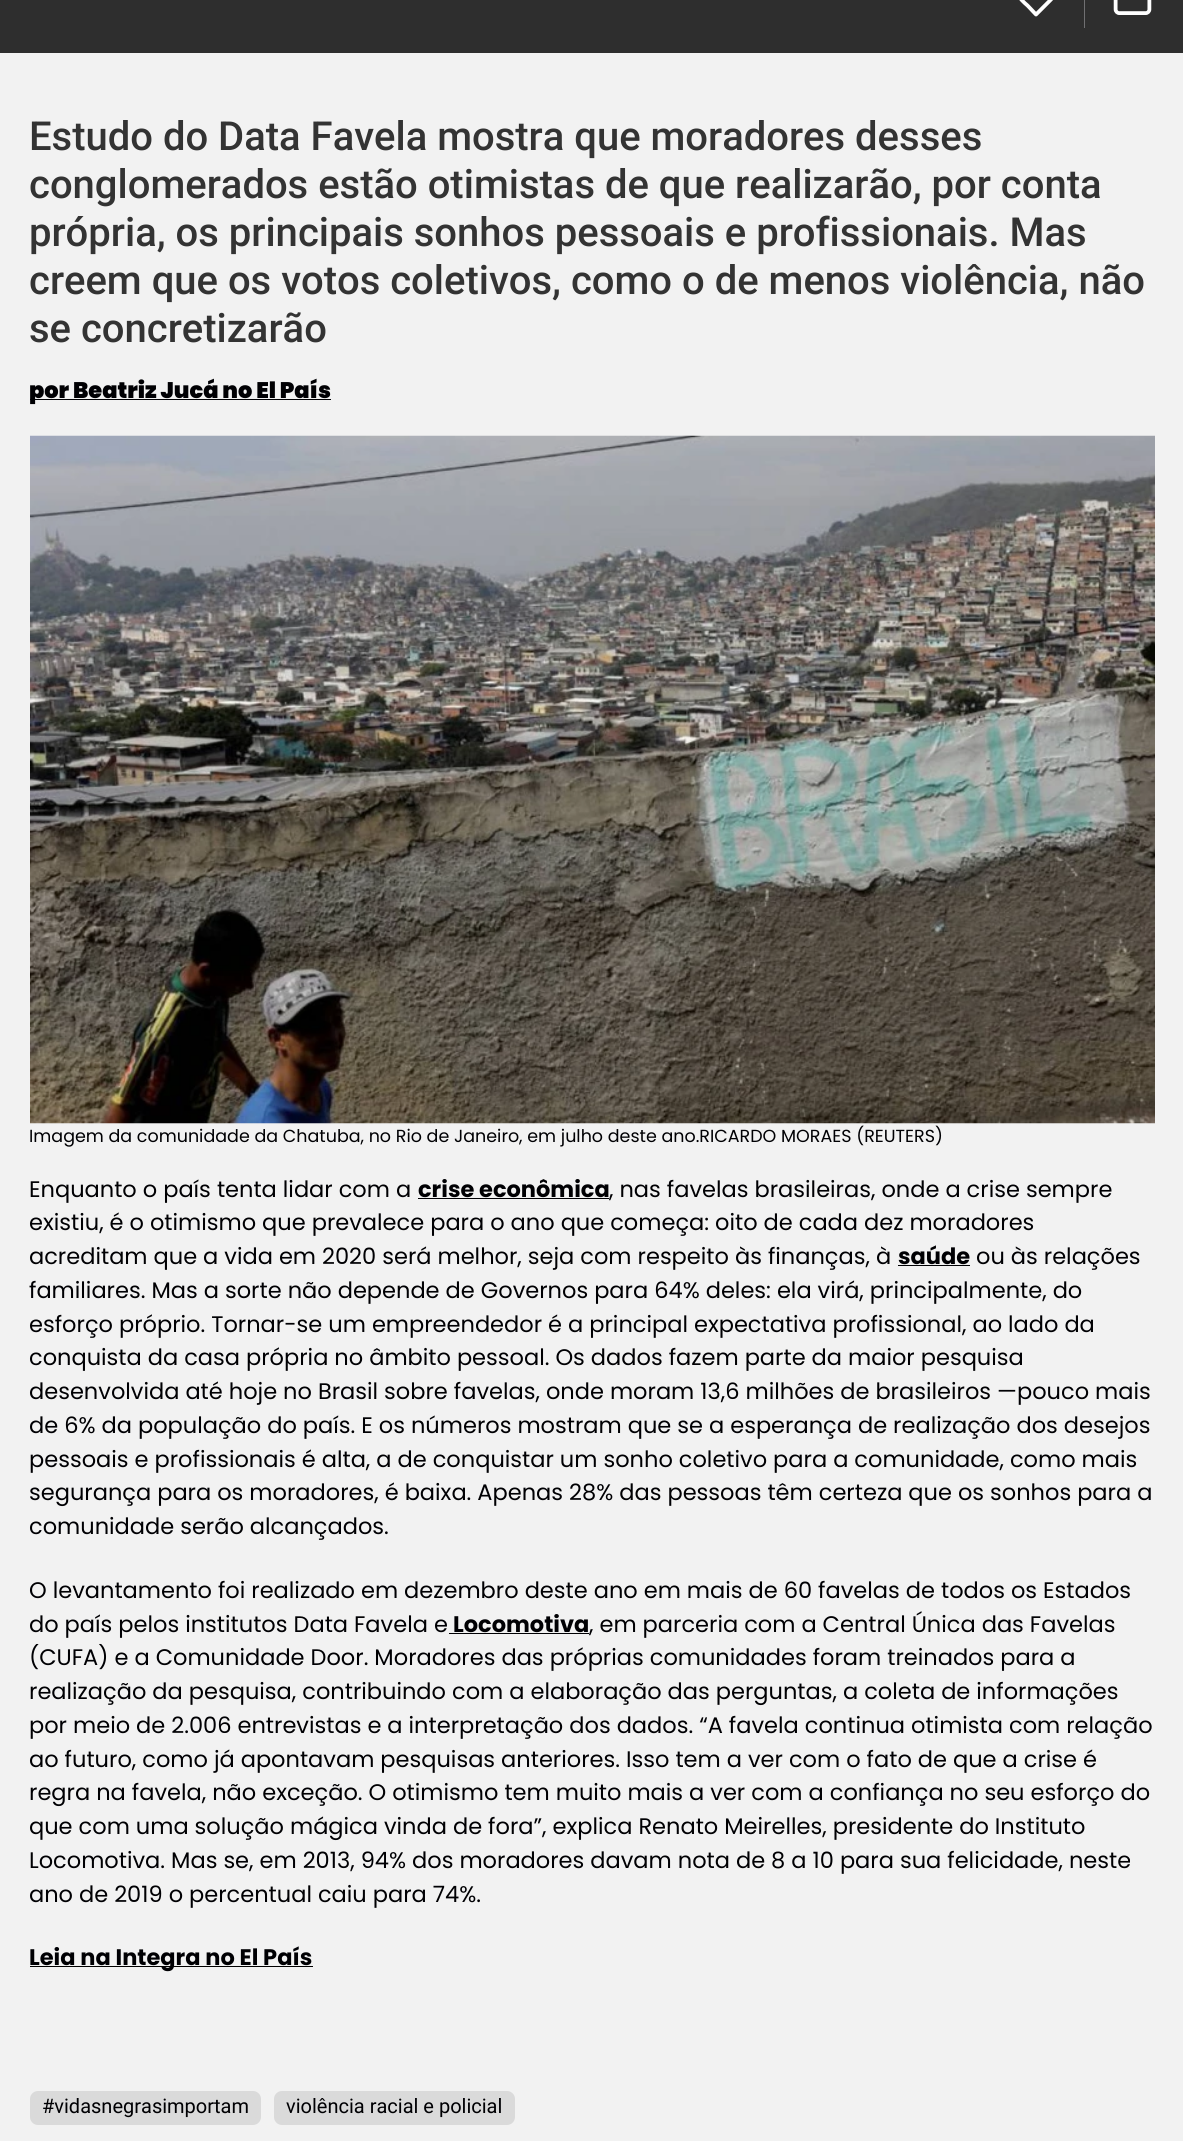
#include <cairo.h>
#include <math.h>
#include <stddef.h>

typedef struct { double x, y; const char *s; } line_t;

static void ink(cairo_t *ctx, unsigned color) {
    cairo_set_source_rgb(ctx, (color >> 16) / 255.0, (color >> 8 & 255) / 255.0, (color & 255) / 255.0);
}

static void round_path(cairo_t *ctx, double x, double y, double w, double h, double r) {
    cairo_new_sub_path(ctx);
    cairo_arc(ctx, x + w - r, y + h - r, r, 0, M_PI / 2);
    cairo_arc(ctx, x + r, y + h - r, r, M_PI / 2, M_PI);
    cairo_arc(ctx, x + r, y + r, r, M_PI, 1.5 * M_PI);
    cairo_arc(ctx, x + w - r, y + r, r, 1.5 * M_PI, 2 * M_PI);
    cairo_close_path(ctx);
}

static void paste(cairo_t *ctx, const char *path, double x, double y, double w, double h) {
    cairo_surface_t *image = cairo_image_surface_create_from_png(path);
    cairo_save(ctx);
    cairo_set_source_surface(ctx, image, x, y);
    cairo_rectangle(ctx, x, y, w, h);
    cairo_fill(ctx);
    cairo_restore(ctx);
    cairo_surface_destroy(image);
}

int main(void) {
    cairo_surface_t *surface = cairo_image_surface_create(CAIRO_FORMAT_RGB24, 1183, 2141);
    cairo_t *ctx = cairo_create(surface);
    cairo_font_options_t *options = cairo_font_options_create();
    cairo_font_options_set_hint_metrics(options, CAIRO_HINT_METRICS_OFF);
    cairo_font_options_set_hint_style(options, CAIRO_HINT_STYLE_NONE);
    cairo_set_font_options(ctx, options);
    cairo_set_miter_limit(ctx, 4);
    ink(ctx, 0xF2F2F2);
    cairo_paint(ctx);
    ink(ctx, 0x2E2E2E);
    cairo_rectangle(ctx, 0, 0, 1183, 53);
    cairo_fill(ctx);
    cairo_new_path(ctx);
    cairo_move_to(ctx, 1049.5, 1);
    cairo_curve_to(ctx, 1051.5, -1, 1053.5, -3, 1054.5, -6);
    cairo_curve_to(ctx, 1058, -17, 1044.5, -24, 1036, -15.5);
    cairo_curve_to(ctx, 1028, -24, 1014.5, -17, 1018, -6);
    cairo_curve_to(ctx, 1019.5, -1.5, 1024, 2.5, 1027.5, 5.5);
    cairo_line_to(ctx, 1036, 14.5);
    cairo_close_path(ctx);
    ink(ctx, 0xFFFFFF);
    cairo_set_line_width(ctx, 3.8);
    cairo_set_line_cap(ctx, CAIRO_LINE_CAP_ROUND);
    cairo_set_line_join(ctx, CAIRO_LINE_JOIN_ROUND);
    cairo_stroke(ctx);
    ink(ctx, 0x707072);
    cairo_rectangle(ctx, 1084, 0, 1, 28);
    cairo_fill(ctx);
    paste(ctx, "media/1.png", 1113, 0, 39, 15);
    cairo_select_font_face(ctx, "Roboto Medium", CAIRO_FONT_SLANT_NORMAL, CAIRO_FONT_WEIGHT_NORMAL);
    cairo_set_font_size(ctx, 40);
    ink(ctx, 0x333333);
    {
        static const line_t items[] = {
            {29, 150, "Estudo do Data Favela mostra que moradores desses"},
            {29, 198, "conglomerados estão otimistas de que realizarão, por conta"},
            {29, 246, "própria, os principais sonhos pessoais e profissionais. Mas"},
            {29, 294, "creem que os votos coletivos, como o de menos violência, não"},
            {29, 342, "se concretizarão"},
        };
        for (size_t i = 0; i < sizeof items / sizeof *items; i++) {
            cairo_move_to(ctx, items[i].x, items[i].y);
            cairo_show_text(ctx, items[i].s);
        }
    }
    ink(ctx, 0x000003);
    cairo_rectangle(ctx, 30, 399, 301, 1);
    cairo_fill(ctx);
    cairo_select_font_face(ctx, "Poppins Black", CAIRO_FONT_SLANT_NORMAL, CAIRO_FONT_WEIGHT_NORMAL);
    cairo_set_font_size(ctx, 22.5);
    cairo_move_to(ctx, 29, 398);
    cairo_show_text(ctx, "por Beatriz Jucá no El País");
    paste(ctx, "media/2.png", 30, 435, 1125, 689);
    cairo_select_font_face(ctx, "Poppins", CAIRO_FONT_SLANT_NORMAL, CAIRO_FONT_WEIGHT_NORMAL);
    cairo_set_font_size(ctx, 17.5);
    cairo_move_to(ctx, 29, 1142);
    cairo_show_text(ctx, "Imagem da comunidade da Chatuba, no Rio de Janeiro, em julho deste ano.RICARDO MORAES (REUTERS)");
    cairo_set_font_size(ctx, 22.5);
    cairo_move_to(ctx, 29, 1197);
    cairo_show_text(ctx, "Enquanto o país tenta lidar com a");
    cairo_select_font_face(ctx, "Poppins", CAIRO_FONT_SLANT_NORMAL, CAIRO_FONT_WEIGHT_BOLD);
    cairo_move_to(ctx, 418, 1197);
    cairo_show_text(ctx, "crise econômica");
    cairo_rectangle(ctx, 418, 1198, 191, 1);
    cairo_fill(ctx);
    cairo_select_font_face(ctx, "Poppins", CAIRO_FONT_SLANT_NORMAL, CAIRO_FONT_WEIGHT_NORMAL);
    {
        static const line_t items[] = {
            {609, 1197, ", nas favelas brasileiras, onde a crise sempre"},
            {29, 1230, "existiu, é o otimismo que prevalece para o ano que começa: oito de cada dez moradores"},
            {29, 1264, "acreditam que a vida em 2020 será melhor, seja com respeito às finanças, à"},
        };
        for (size_t i = 0; i < sizeof items / sizeof *items; i++) {
            cairo_move_to(ctx, items[i].x, items[i].y);
            cairo_show_text(ctx, items[i].s);
        }
    }
    cairo_select_font_face(ctx, "Poppins", CAIRO_FONT_SLANT_NORMAL, CAIRO_FONT_WEIGHT_BOLD);
    cairo_move_to(ctx, 898, 1264);
    cairo_show_text(ctx, "saúde");
    cairo_rectangle(ctx, 898, 1265, 72, 1);
    cairo_fill(ctx);
    cairo_select_font_face(ctx, "Poppins", CAIRO_FONT_SLANT_NORMAL, CAIRO_FONT_WEIGHT_NORMAL);
    {
        static const line_t items[] = {
            {976, 1264, "ou às relações"},
            {29, 1298, "familiares. Mas a sorte não depende de Governos para 64% deles: ela virá, principalmente, do"},
            {29, 1332, "esforço próprio. Tornar-se um empreendedor é a principal expectativa profissional, ao lado da"},
            {29, 1365, "conquista da casa própria no âmbito pessoal. Os dados fazem parte da maior pesquisa"},
            {29, 1399, "desenvolvida até hoje no Brasil sobre favelas, onde moram 13,6 milhões de brasileiros —pouco mais"},
            {29, 1433, "de 6% da população do país. E os números mostram que se a esperança de realização dos desejos"},
            {29, 1467, "pessoais e profissionais é alta, a de conquistar um sonho coletivo para a comunidade, como mais"},
            {29, 1500, "segurança para os moradores, é baixa. Apenas 28% das pessoas têm certeza que os sonhos para a"},
            {29, 1534, "comunidade serão alcançados."},
            {29, 1598, "O levantamento foi realizado em dezembro deste ano em mais de 60 favelas de todos os Estados"},
            {29, 1632, "do país pelos institutos Data Favela e"},
        };
        for (size_t i = 0; i < sizeof items / sizeof *items; i++) {
            cairo_move_to(ctx, items[i].x, items[i].y);
            cairo_show_text(ctx, items[i].s);
        }
    }
    cairo_select_font_face(ctx, "Poppins", CAIRO_FONT_SLANT_NORMAL, CAIRO_FONT_WEIGHT_BOLD);
    cairo_move_to(ctx, 453, 1632);
    cairo_show_text(ctx, "Locomotiva");
    cairo_rectangle(ctx, 449, 1633, 140, 1);
    cairo_fill(ctx);
    cairo_select_font_face(ctx, "Poppins", CAIRO_FONT_SLANT_NORMAL, CAIRO_FONT_WEIGHT_NORMAL);
    {
        static const line_t items[] = {
            {589, 1632, ", em parceria com a Central Única das Favelas"},
            {29, 1665, "(CUFA) e a Comunidade Door. Moradores das próprias comunidades foram treinados para a"},
            {29, 1699, "realização da pesquisa, contribuindo com a elaboração das perguntas, a coleta de informações"},
            {29, 1733, "por meio de 2.006 entrevistas e a interpretação dos dados. “A favela continua otimista com relação"},
            {29, 1767, "ao futuro, como já apontavam pesquisas anteriores. Isso tem a ver com o fato de que a crise é"},
            {29, 1800, "regra na favela, não exceção. O otimismo tem muito mais a ver com a confiança no seu esforço do"},
            {29, 1834, "que com uma solução mágica vinda de fora”, explica Renato Meirelles, presidente do Instituto"},
            {29, 1868, "Locomotiva. Mas se, em 2013, 94% dos moradores davam nota de 8 a 10 para sua felicidade, neste"},
            {29, 1902, "ano de 2019 o percentual caiu para 74%."},
        };
        for (size_t i = 0; i < sizeof items / sizeof *items; i++) {
            cairo_move_to(ctx, items[i].x, items[i].y);
            cairo_show_text(ctx, items[i].s);
        }
    }
    ink(ctx, 0x000000);
    cairo_rectangle(ctx, 30, 1966, 283, 1);
    cairo_fill(ctx);
    cairo_select_font_face(ctx, "Poppins", CAIRO_FONT_SLANT_NORMAL, CAIRO_FONT_WEIGHT_BOLD);
    ink(ctx, 0x000003);
    cairo_move_to(ctx, 29, 1965);
    cairo_show_text(ctx, "Leia na Integra no El País");
    ink(ctx, 0xDADADA);
    round_path(ctx, 30, 2091, 231, 34, 8);
    cairo_fill(ctx);
    cairo_select_font_face(ctx, "Roboto", CAIRO_FONT_SLANT_NORMAL, CAIRO_FONT_WEIGHT_NORMAL);
    cairo_set_font_size(ctx, 20);
    ink(ctx, 0x000003);
    cairo_move_to(ctx, 42, 2113);
    cairo_show_text(ctx, "#vidasnegrasimportam");
    ink(ctx, 0xDADADA);
    round_path(ctx, 274, 2091, 241, 34, 8);
    cairo_fill(ctx);
    ink(ctx, 0x000003);
    cairo_move_to(ctx, 286, 2113);
    cairo_show_text(ctx, "violência racial e policial");
    cairo_surface_write_to_png(surface, "image.png");
    cairo_font_options_destroy(options);
    cairo_destroy(ctx);
    cairo_surface_destroy(surface);
    return 0;
}
